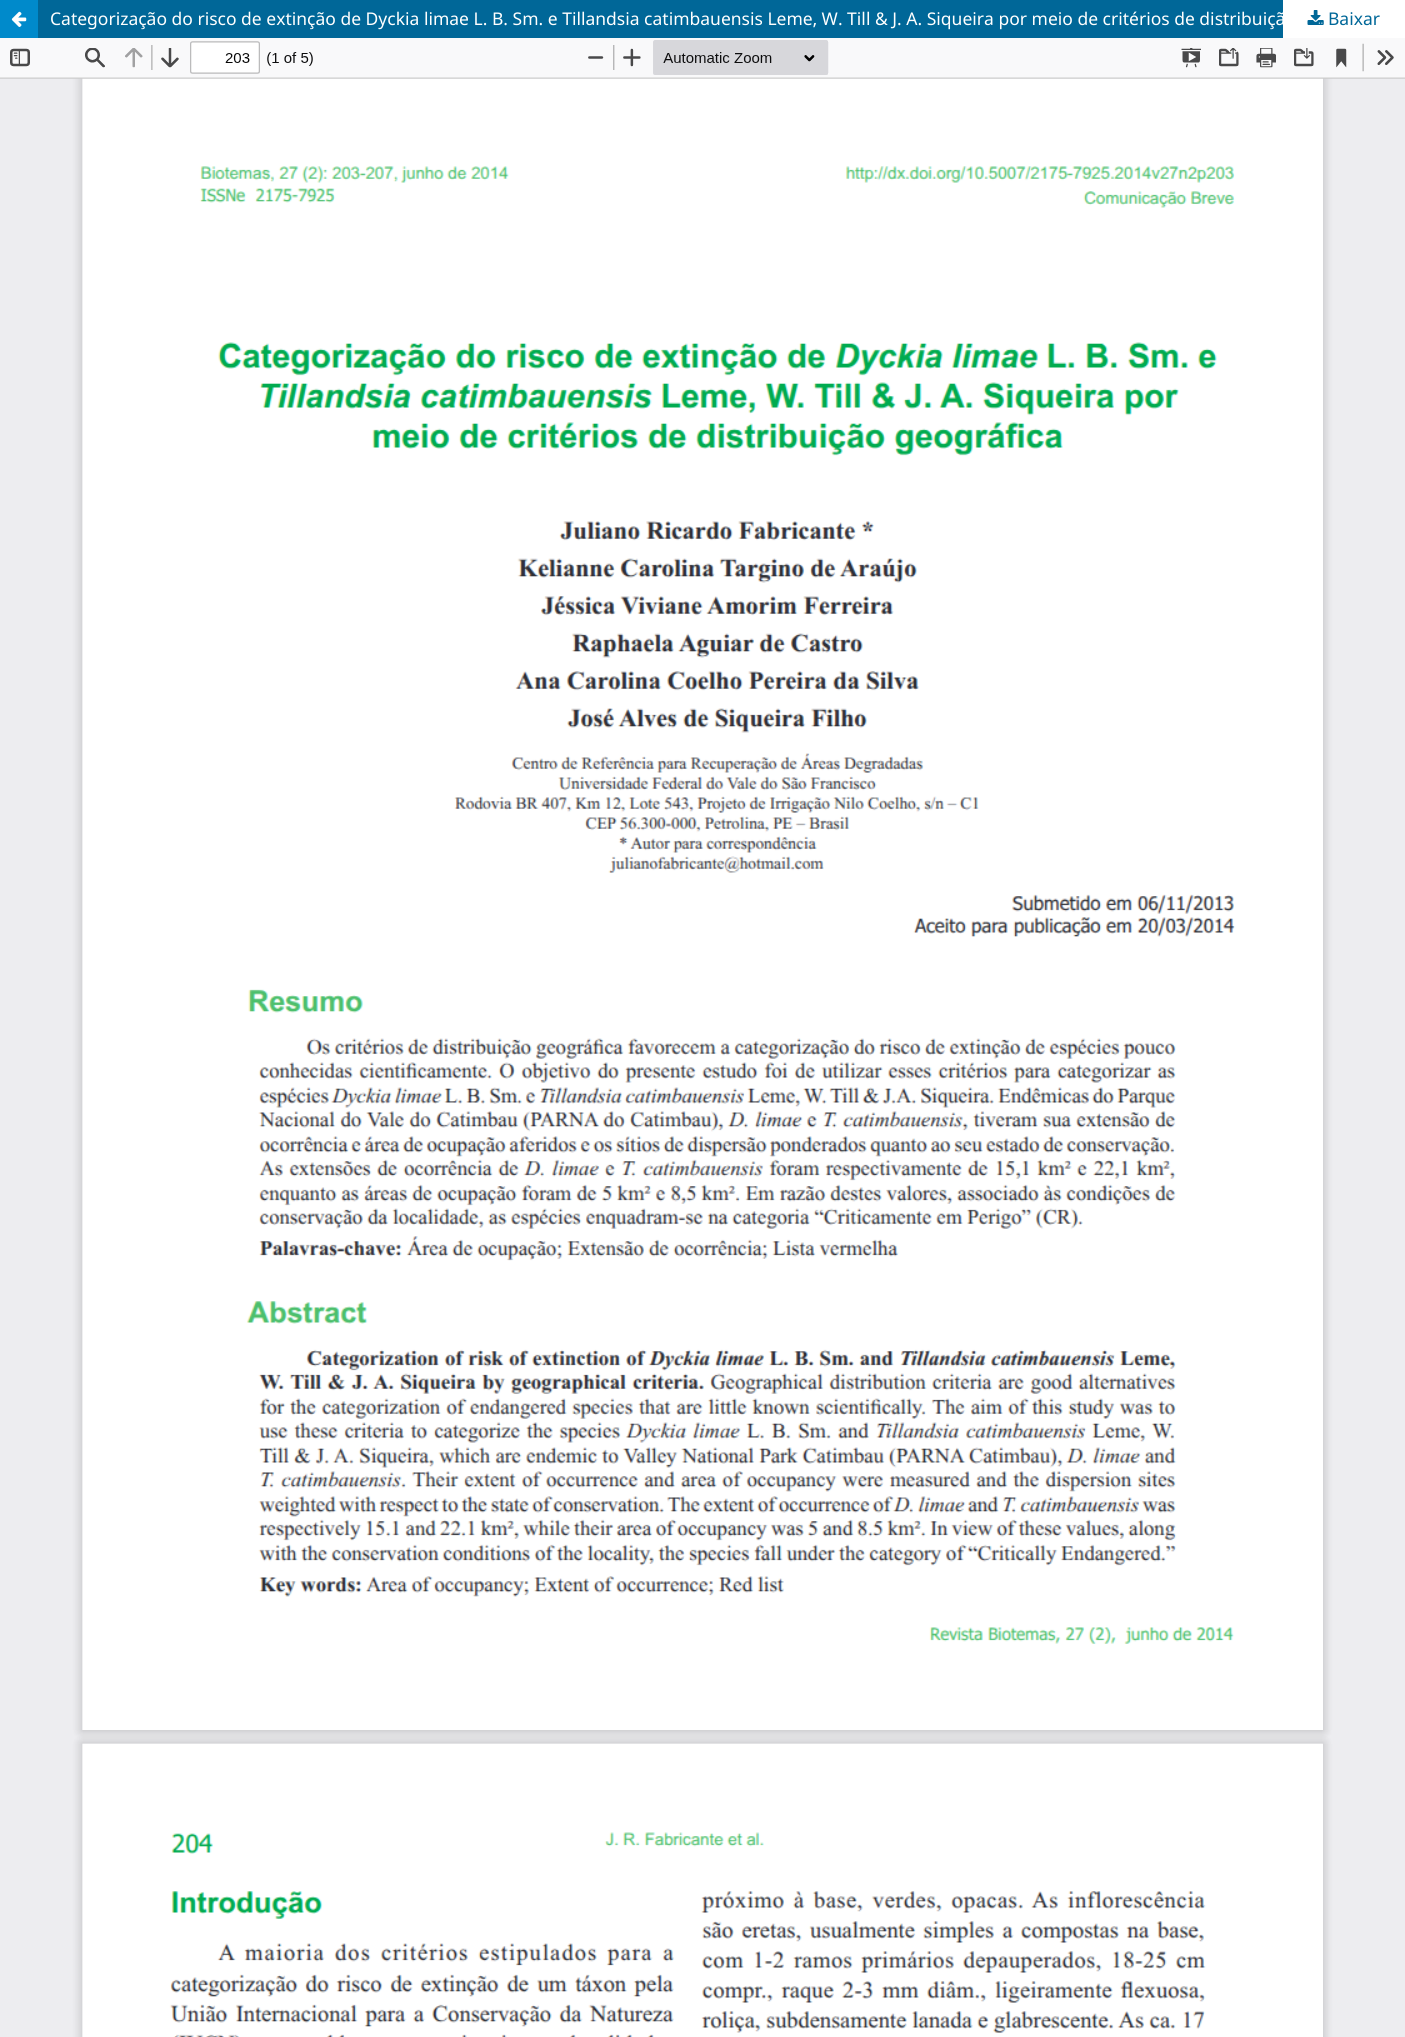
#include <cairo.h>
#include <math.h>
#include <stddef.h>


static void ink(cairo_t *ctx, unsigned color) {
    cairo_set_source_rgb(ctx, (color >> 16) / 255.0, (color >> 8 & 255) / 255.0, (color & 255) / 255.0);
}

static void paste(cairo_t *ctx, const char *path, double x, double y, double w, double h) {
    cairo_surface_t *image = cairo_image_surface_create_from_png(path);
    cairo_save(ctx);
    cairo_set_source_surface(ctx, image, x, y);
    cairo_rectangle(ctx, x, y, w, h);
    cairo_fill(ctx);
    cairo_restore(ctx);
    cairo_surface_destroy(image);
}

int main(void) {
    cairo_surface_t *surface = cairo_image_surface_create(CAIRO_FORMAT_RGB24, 1405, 2037);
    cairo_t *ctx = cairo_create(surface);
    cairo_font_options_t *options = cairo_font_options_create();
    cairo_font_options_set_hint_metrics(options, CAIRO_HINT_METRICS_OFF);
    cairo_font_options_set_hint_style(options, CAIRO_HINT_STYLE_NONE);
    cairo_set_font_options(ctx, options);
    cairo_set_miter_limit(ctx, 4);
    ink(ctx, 0xFFFFFF);
    cairo_paint(ctx);
    ink(ctx, 0x006798);
    cairo_rectangle(ctx, 38, 0, 1245, 38);
    cairo_fill(ctx);
    ink(ctx, 0x008ACB);
    cairo_rectangle(ctx, 0, 0, 38, 38);
    cairo_fill(ctx);
    paste(ctx, "media/1.png", 11, 11, 16, 16);
    cairo_select_font_face(ctx, "Noto Sans", CAIRO_FONT_SLANT_NORMAL, CAIRO_FONT_WEIGHT_NORMAL);
    cairo_set_font_size(ctx, 17.5);
    ink(ctx, 0xFFFFFF);
    cairo_move_to(ctx, 50, 25);
    cairo_show_text(ctx, "Categorização do risco de extinção de Dyckia limae L. B. Sm. e Tillandsia catimbauensis Leme, W. Till & J. A. Siqueira por meio de critérios de distribuiçã");
    paste(ctx, "media/2.png", 1307, 10, 17, 15);
    ink(ctx, 0x006798);
    cairo_move_to(ctx, 1328, 25);
    cairo_show_text(ctx, "Baixar");
    paste(ctx, "media/3.png", 0, 38, 1405, 1999);
    cairo_surface_write_to_png(surface, "image.png");
    cairo_font_options_destroy(options);
    cairo_destroy(ctx);
    cairo_surface_destroy(surface);
    return 0;
}
